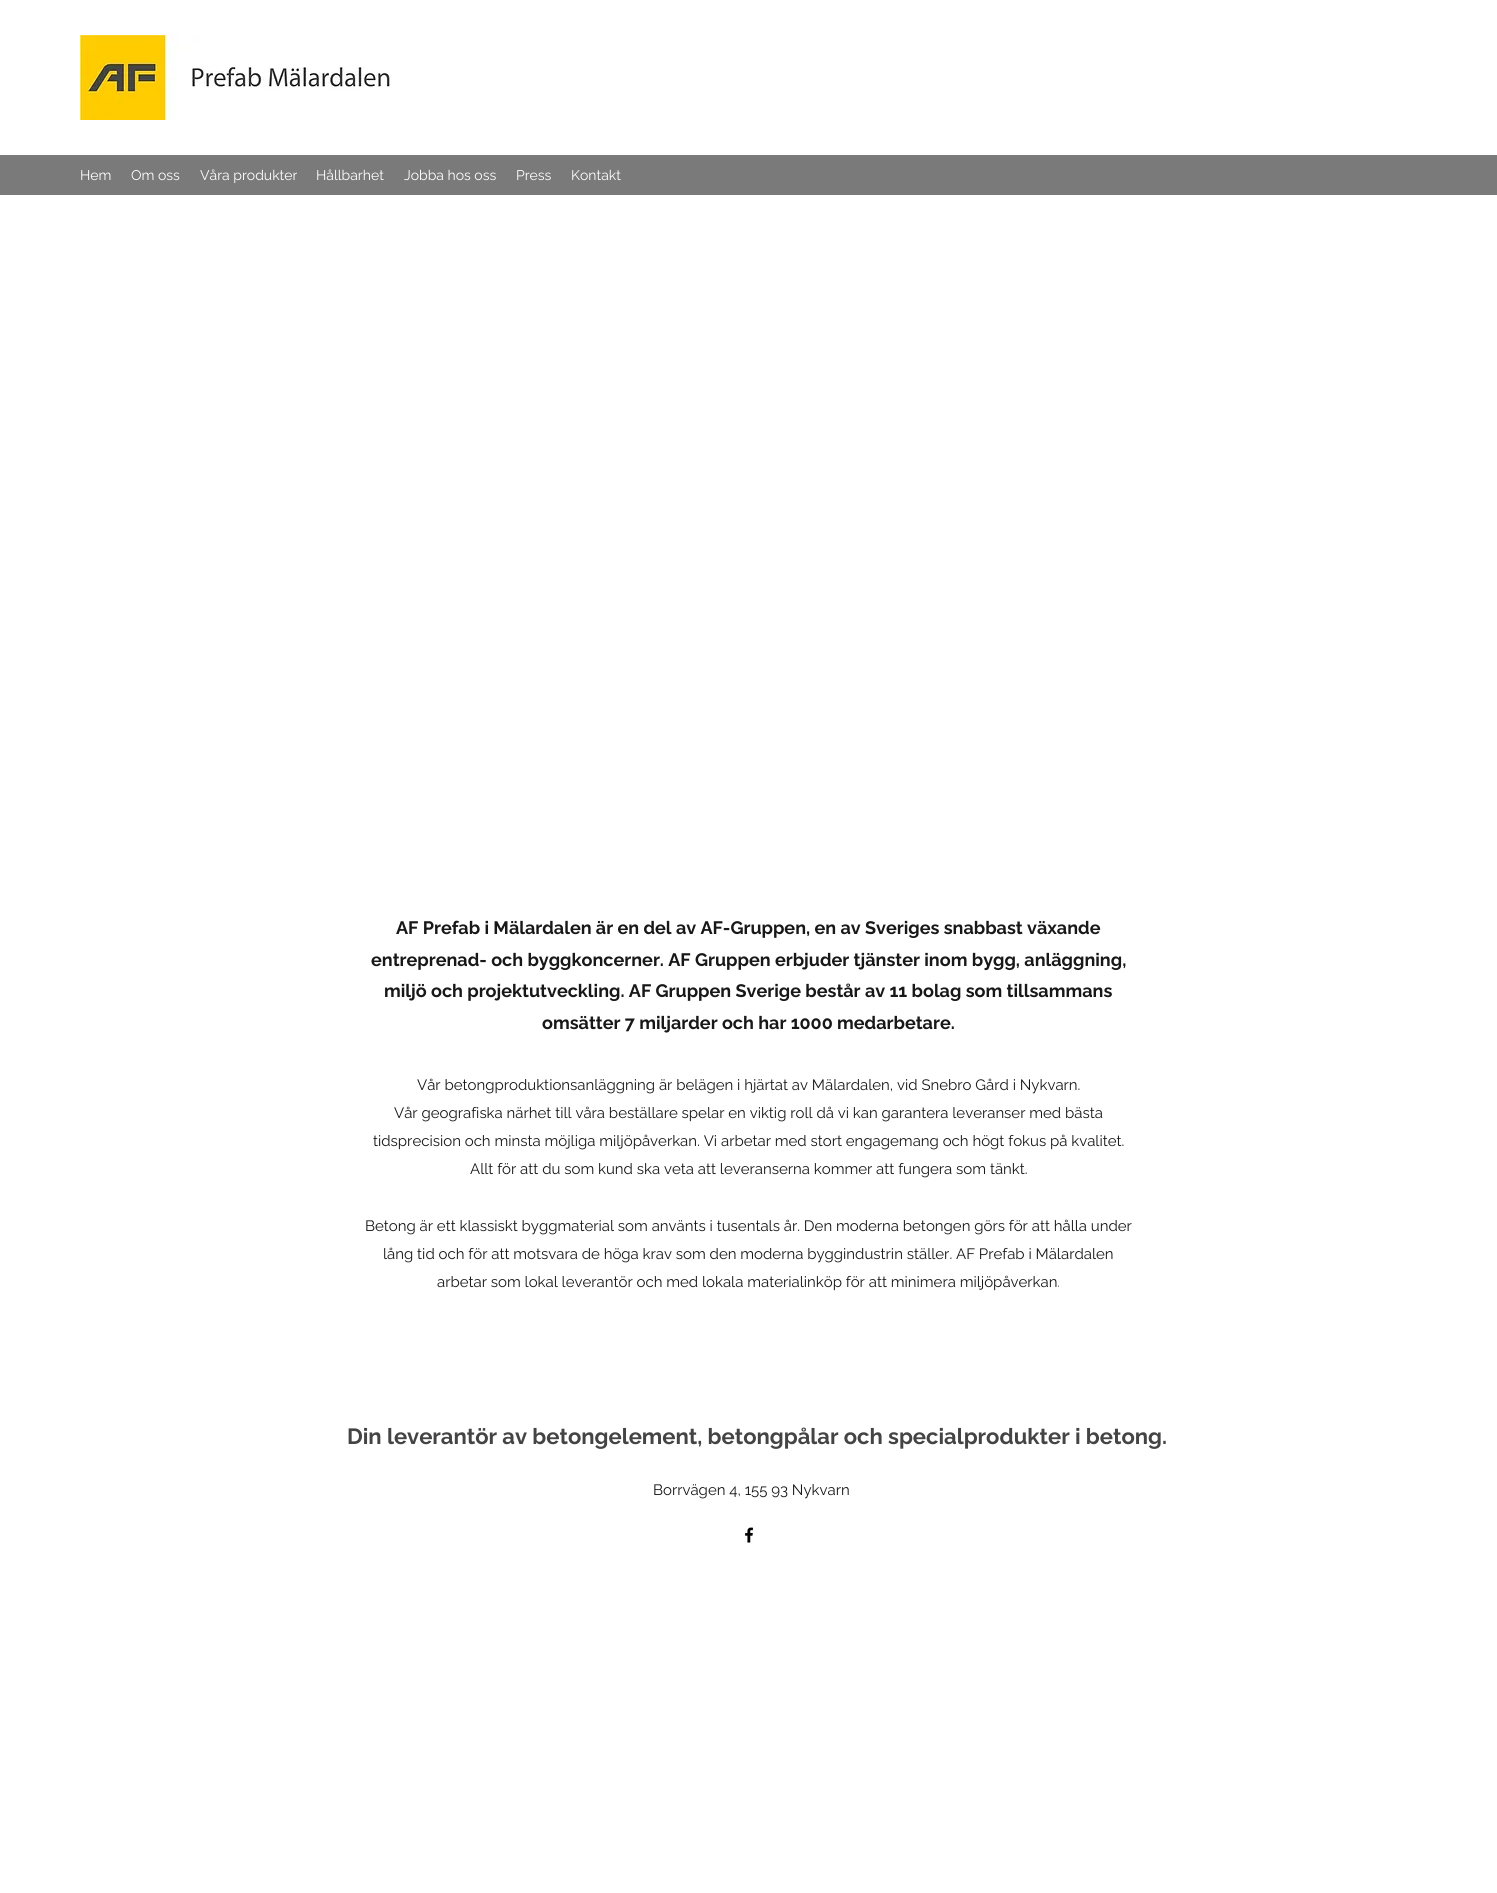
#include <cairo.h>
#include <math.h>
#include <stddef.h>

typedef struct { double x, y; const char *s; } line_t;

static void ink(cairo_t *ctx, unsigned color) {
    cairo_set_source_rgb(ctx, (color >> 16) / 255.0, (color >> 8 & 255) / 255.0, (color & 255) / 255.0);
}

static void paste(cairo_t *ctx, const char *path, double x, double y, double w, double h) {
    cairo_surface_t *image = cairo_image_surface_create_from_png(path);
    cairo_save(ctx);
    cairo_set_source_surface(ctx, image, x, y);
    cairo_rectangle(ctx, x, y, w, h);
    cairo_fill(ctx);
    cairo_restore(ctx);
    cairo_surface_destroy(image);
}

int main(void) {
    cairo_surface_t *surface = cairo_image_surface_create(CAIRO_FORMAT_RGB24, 1497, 1893);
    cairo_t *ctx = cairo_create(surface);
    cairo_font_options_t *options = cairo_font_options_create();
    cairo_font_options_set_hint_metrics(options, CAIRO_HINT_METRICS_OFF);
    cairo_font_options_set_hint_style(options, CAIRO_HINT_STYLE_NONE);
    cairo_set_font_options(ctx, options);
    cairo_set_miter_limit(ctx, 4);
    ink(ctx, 0xFFFFFF);
    cairo_paint(ctx);
    paste(ctx, "media/1.png", 80, 35, 311, 85);
    ink(ctx, 0x7A7A7A);
    cairo_rectangle(ctx, 0, 155, 1497, 40);
    cairo_fill(ctx);
    cairo_select_font_face(ctx, "Raleway", CAIRO_FONT_SLANT_NORMAL, CAIRO_FONT_WEIGHT_NORMAL);
    cairo_set_font_size(ctx, 14);
    ink(ctx, 0xFFFFFF);
    {
        static const line_t items[] = {
            {80, 180, "Hem"},
            {131, 180, "Om oss"},
            {200, 180, "Våra produkter"},
            {316, 180, "Hållbarhet"},
            {404, 180, "Jobba hos oss"},
            {516, 180, "Press"},
            {571, 180, "Kontakt"},
        };
        for (size_t i = 0; i < sizeof items / sizeof *items; i++) {
            cairo_move_to(ctx, items[i].x, items[i].y);
            cairo_show_text(ctx, items[i].s);
        }
    }
    cairo_select_font_face(ctx, "Raleway", CAIRO_FONT_SLANT_NORMAL, CAIRO_FONT_WEIGHT_BOLD);
    cairo_set_font_size(ctx, 18);
    ink(ctx, 0x181818);
    {
        static const line_t items[] = {
            {396, 934, "AF Prefab i Mälardalen är en del av AF-Gruppen, en av Sveriges snabbast växande"},
            {371, 966, "entreprenad- och byggkoncerner. AF Gruppen erbjuder tjänster inom bygg, anläggning,"},
            {384, 997, "miljö och projektutveckling. AF Gruppen Sverige består av 11 bolag som tillsammans"},
            {542, 1029, "omsätter 7 miljarder och har 1000 medarbetare."},
        };
        for (size_t i = 0; i < sizeof items / sizeof *items; i++) {
            cairo_move_to(ctx, items[i].x, items[i].y);
            cairo_show_text(ctx, items[i].s);
        }
    }
    cairo_select_font_face(ctx, "Raleway", CAIRO_FONT_SLANT_NORMAL, CAIRO_FONT_WEIGHT_NORMAL);
    cairo_set_font_size(ctx, 15);
    {
        static const line_t items[] = {
            {417, 1090, "Vår betongproduktionsanläggning är belägen i hjärtat av Mälardalen, vid Snebro Gård i Nykvarn."},
            {394, 1118, "Vår geografiska närhet till våra beställare spelar en viktig roll då vi kan garantera leveranser med bästa"},
            {373, 1146, "tidsprecision och minsta möjliga miljöpåverkan. Vi arbetar med stort engagemang och högt fokus på kvalitet."},
            {470, 1174, "Allt för att du som kund ska veta att leveranserna kommer att fungera som tänkt."},
            {365, 1231, "Betong är ett klassiskt byggmaterial som använts i tusentals år. Den moderna betongen görs för att hålla under"},
            {383, 1259, "lång tid och för att motsvara de höga krav som den moderna byggindustrin ställer. AF Prefab i Mälardalen"},
            {437, 1287, "arbetar som lokal leverantör och med lokala materialinköp för att minimera miljöpåverkan."},
        };
        for (size_t i = 0; i < sizeof items / sizeof *items; i++) {
            cairo_move_to(ctx, items[i].x, items[i].y);
            cairo_show_text(ctx, items[i].s);
        }
    }
    cairo_select_font_face(ctx, "Raleway", CAIRO_FONT_SLANT_NORMAL, CAIRO_FONT_WEIGHT_BOLD);
    cairo_set_font_size(ctx, 22);
    ink(ctx, 0x444444);
    cairo_move_to(ctx, 347, 1444);
    cairo_show_text(ctx, "Din leverantör av betongelement, betongpålar och specialprodukter i betong.");
    cairo_select_font_face(ctx, "Raleway", CAIRO_FONT_SLANT_NORMAL, CAIRO_FONT_WEIGHT_NORMAL);
    cairo_set_font_size(ctx, 15);
    ink(ctx, 0x181818);
    cairo_move_to(ctx, 653, 1495);
    cairo_show_text(ctx, "Borrvägen 4, 155 93 Nykvarn");
    paste(ctx, "media/2.png", 745, 1527, 9, 16);
    cairo_surface_write_to_png(surface, "image.png");
    cairo_font_options_destroy(options);
    cairo_destroy(ctx);
    cairo_surface_destroy(surface);
    return 0;
}
